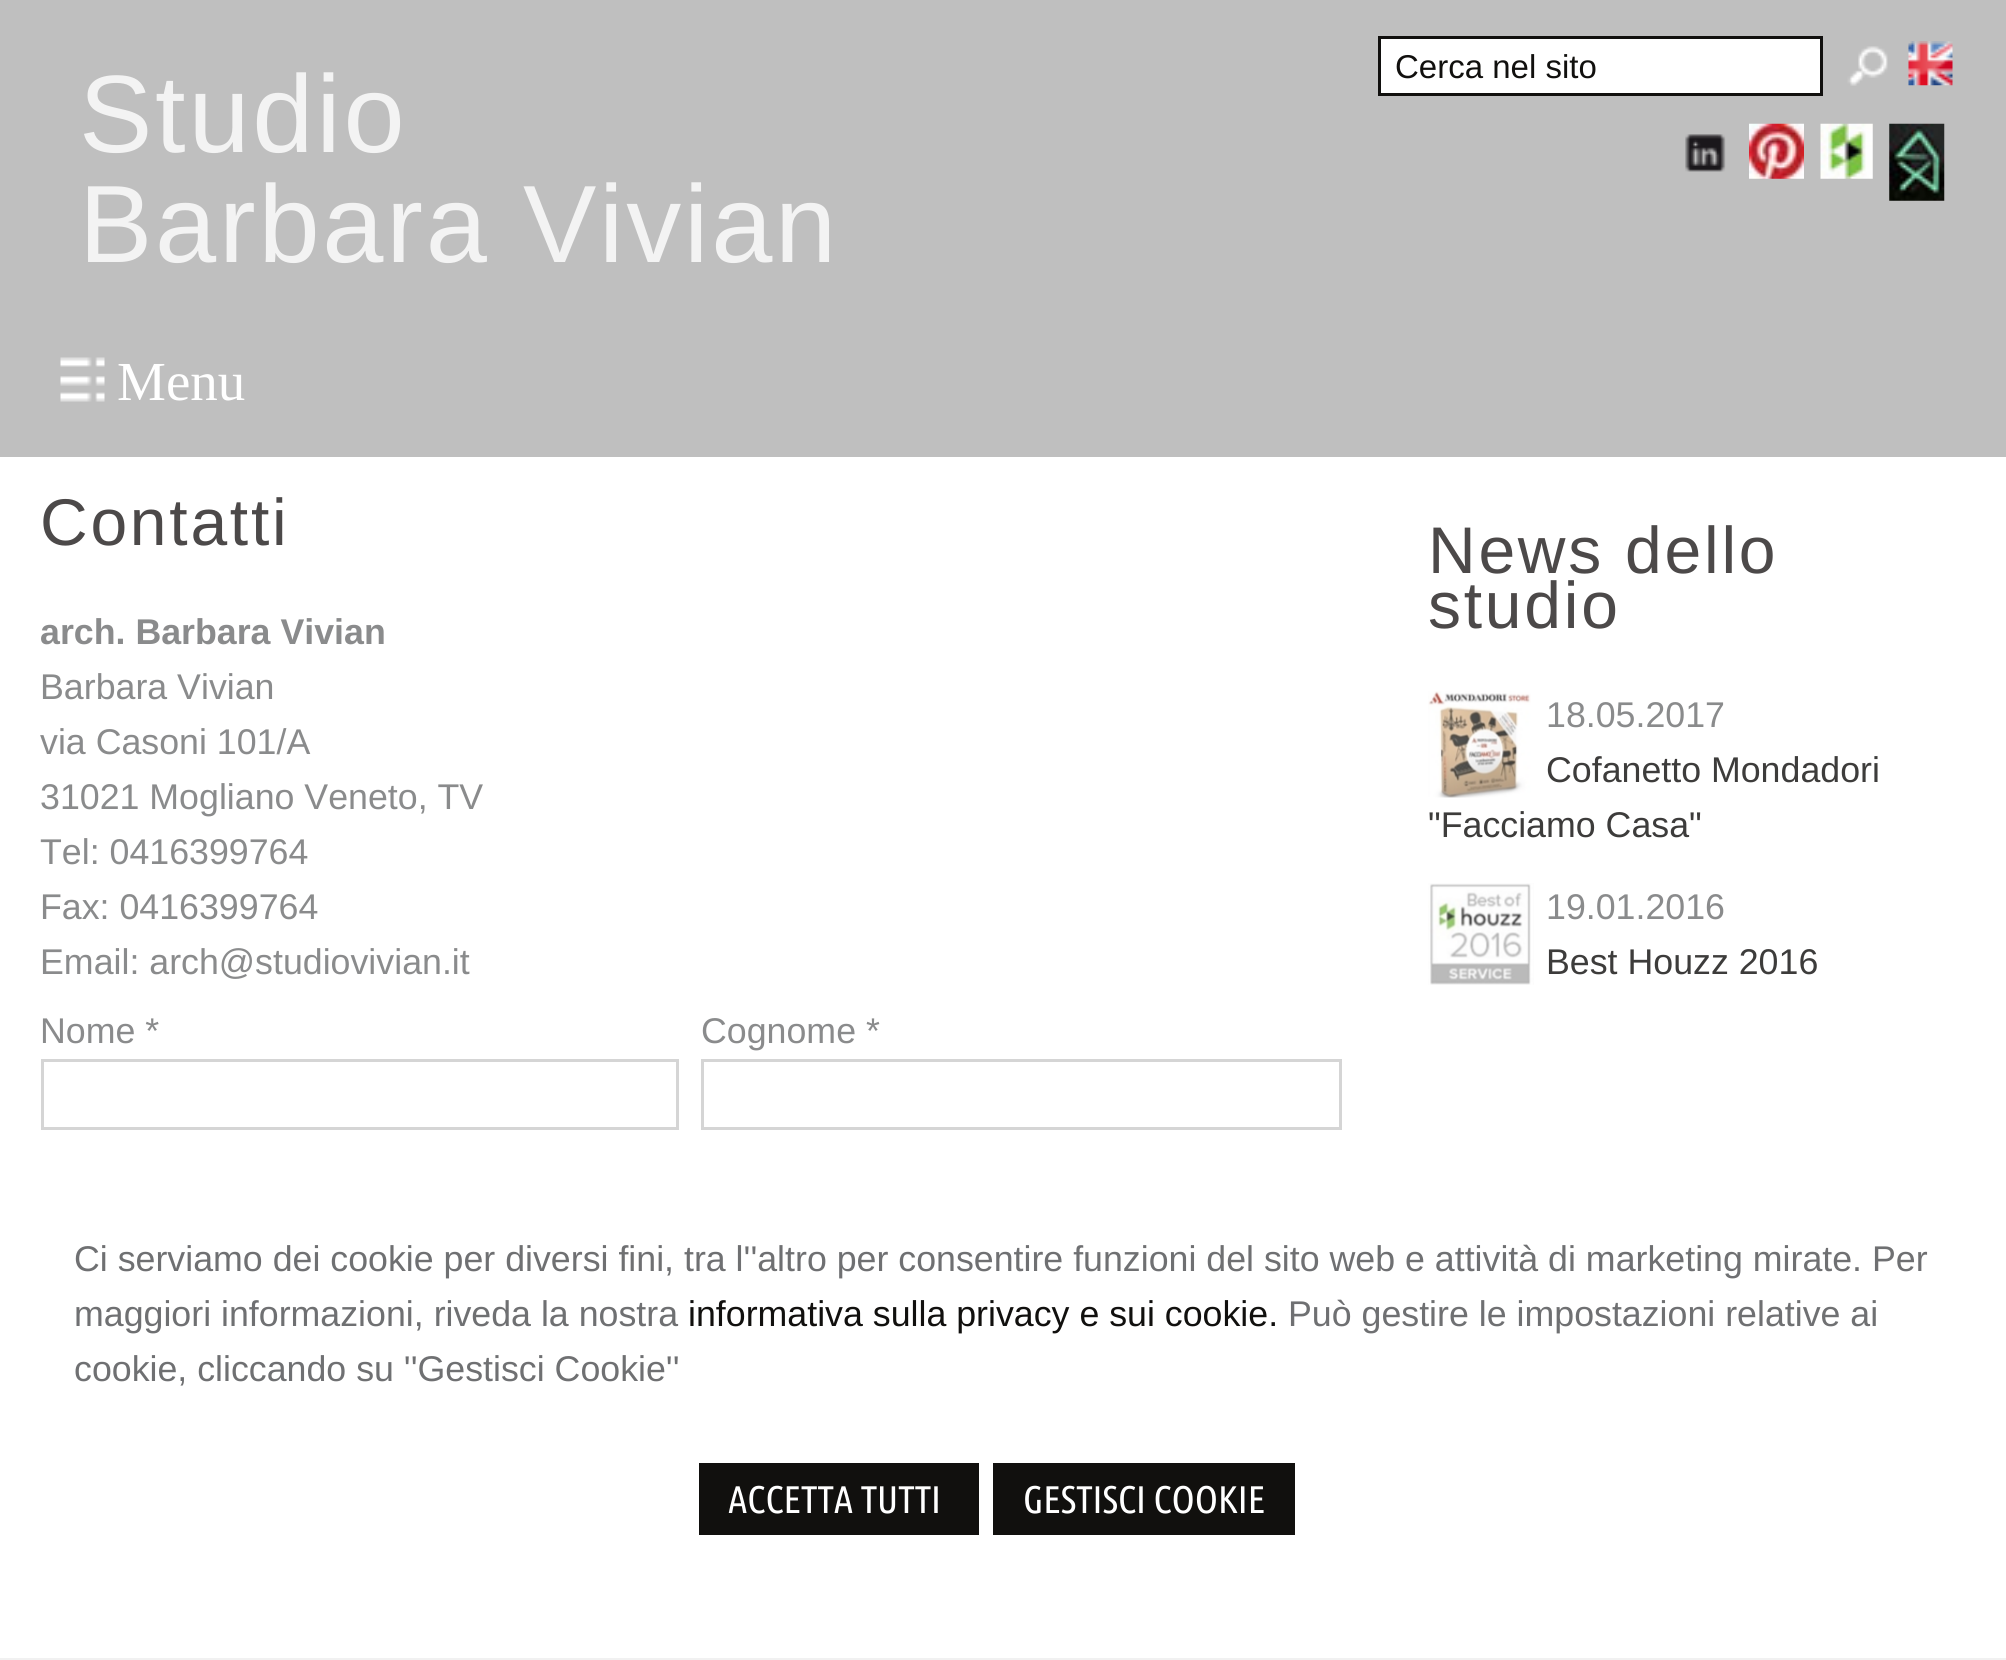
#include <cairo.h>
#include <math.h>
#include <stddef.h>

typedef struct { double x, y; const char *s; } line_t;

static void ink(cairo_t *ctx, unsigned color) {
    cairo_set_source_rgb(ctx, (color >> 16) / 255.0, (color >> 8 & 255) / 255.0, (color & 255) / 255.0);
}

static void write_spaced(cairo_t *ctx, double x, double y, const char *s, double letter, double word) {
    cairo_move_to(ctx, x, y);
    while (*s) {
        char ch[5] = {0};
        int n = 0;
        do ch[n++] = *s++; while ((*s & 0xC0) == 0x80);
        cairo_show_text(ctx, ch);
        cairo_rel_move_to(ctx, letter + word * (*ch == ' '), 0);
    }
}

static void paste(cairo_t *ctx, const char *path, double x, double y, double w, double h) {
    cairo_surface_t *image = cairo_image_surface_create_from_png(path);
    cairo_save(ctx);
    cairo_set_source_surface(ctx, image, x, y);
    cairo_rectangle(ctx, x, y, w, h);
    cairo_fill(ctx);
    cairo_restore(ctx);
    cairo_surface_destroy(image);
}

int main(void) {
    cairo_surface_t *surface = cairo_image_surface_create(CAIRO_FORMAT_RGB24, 2006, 1660);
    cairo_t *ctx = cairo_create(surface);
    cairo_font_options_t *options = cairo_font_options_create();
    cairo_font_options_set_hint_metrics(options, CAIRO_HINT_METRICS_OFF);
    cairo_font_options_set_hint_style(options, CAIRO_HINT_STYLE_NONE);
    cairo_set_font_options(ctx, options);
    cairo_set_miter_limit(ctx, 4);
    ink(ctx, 0xFFFFFF);
    cairo_paint(ctx);
    ink(ctx, 0xBFBFBF);
    cairo_rectangle(ctx, 0, 0, 2006, 457);
    cairo_fill(ctx);
    ink(ctx, 0xFFFFFF);
    cairo_rectangle(ctx, 1379.5, 37.5, 442, 57);
    cairo_fill_preserve(ctx);
    ink(ctx, 0x11100E);
    cairo_set_line_width(ctx, 3);
    cairo_stroke(ctx);
    cairo_select_font_face(ctx, "Liberation Sans", CAIRO_FONT_SLANT_NORMAL, CAIRO_FONT_WEIGHT_NORMAL);
    cairo_set_font_size(ctx, 33);
    cairo_move_to(ctx, 1395, 78);
    cairo_show_text(ctx, "Cerca nel sito");
    paste(ctx, "media/1.png", 1847, 46, 41, 40);
    paste(ctx, "media/2.png", 1908, 41, 45, 45);
    paste(ctx, "media/3.png", 1685, 134, 41, 38);
    paste(ctx, "media/4.png", 1749, 123, 55, 56);
    paste(ctx, "media/5.png", 1820, 123, 53, 56);
    paste(ctx, "media/6.png", 1889, 123, 56, 78);
    cairo_set_font_size(ctx, 110);
    ink(ctx, 0xF3F3F3);
    write_spaced(ctx, 79, 152, "Studio", 2.75, 0);
    write_spaced(ctx, 79, 262, "Barbara Vivian", 2.75, 0);
    paste(ctx, "media/7.png", 60, 357, 45, 45);
    cairo_select_font_face(ctx, "Liberation Serif", CAIRO_FONT_SLANT_NORMAL, CAIRO_FONT_WEIGHT_NORMAL);
    cairo_set_font_size(ctx, 55);
    ink(ctx, 0xFFFFFF);
    cairo_move_to(ctx, 117, 400);
    cairo_show_text(ctx, "Menu");
    cairo_select_font_face(ctx, "Liberation Sans", CAIRO_FONT_SLANT_NORMAL, CAIRO_FONT_WEIGHT_NORMAL);
    cairo_set_font_size(ctx, 66);
    ink(ctx, 0x4C4949);
    write_spaced(ctx, 40, 545, "Contatti", 2.75, 0);
    cairo_select_font_face(ctx, "Liberation Sans", CAIRO_FONT_SLANT_NORMAL, CAIRO_FONT_WEIGHT_BOLD);
    cairo_set_font_size(ctx, 35.75);
    ink(ctx, 0x8A8B8C);
    cairo_move_to(ctx, 40, 644);
    cairo_show_text(ctx, "arch. Barbara Vivian");
    cairo_select_font_face(ctx, "Liberation Sans", CAIRO_FONT_SLANT_NORMAL, CAIRO_FONT_WEIGHT_NORMAL);
    {
        static const line_t items[] = {
            {40, 699, "Barbara Vivian"},
            {40, 754, "via Casoni 101/A"},
            {40, 809, "31021 Mogliano Veneto, TV"},
            {40, 864, "Tel: 0416399764"},
            {40, 919, "Fax: 0416399764"},
            {40, 974, "Email: arch@studiovivian.it"},
            {40, 1043, "Nome *"},
        };
        for (size_t i = 0; i < sizeof items / sizeof *items; i++) {
            cairo_move_to(ctx, items[i].x, items[i].y);
            cairo_show_text(ctx, items[i].s);
        }
    }
    cairo_rectangle(ctx, 42.5, 1060.5, 635, 68);
    ink(ctx, 0xD5D5D5);
    cairo_stroke(ctx);
    ink(ctx, 0x8A8B8C);
    cairo_move_to(ctx, 701, 1043);
    cairo_show_text(ctx, "Cognome *");
    cairo_rectangle(ctx, 702.5, 1060.5, 638, 68);
    ink(ctx, 0xD5D5D5);
    cairo_stroke(ctx);
    cairo_set_font_size(ctx, 66);
    ink(ctx, 0x4C4949);
    write_spaced(ctx, 1428, 573, "News dello", 2.75, 0);
    write_spaced(ctx, 1428, 628, "studio", 2.75, 0);
    paste(ctx, "media/8.png", 1428, 691, 103, 107);
    cairo_set_font_size(ctx, 35.75);
    ink(ctx, 0x8A8B8C);
    cairo_move_to(ctx, 1546, 727);
    cairo_show_text(ctx, "18.05.2017");
    ink(ctx, 0x3D3C3B);
    cairo_move_to(ctx, 1546, 782);
    cairo_show_text(ctx, "Cofanetto Mondadori");
    cairo_move_to(ctx, 1428, 837);
    cairo_show_text(ctx, "\"Facciamo Casa\"");
    paste(ctx, "media/9.png", 1428, 883, 106, 102);
    ink(ctx, 0x8A8B8C);
    cairo_move_to(ctx, 1546, 919);
    cairo_show_text(ctx, "19.01.2016");
    ink(ctx, 0x3D3C3B);
    cairo_move_to(ctx, 1546, 974);
    cairo_show_text(ctx, "Best Houzz 2016");
    ink(ctx, 0xF1F1F1);
    cairo_rectangle(ctx, 0, 1658, 2006, 2);
    cairo_fill(ctx);
    ink(ctx, 0x6F7072);
    cairo_move_to(ctx, 74, 1271);
    cairo_show_text(ctx, "Ci serviamo dei cookie per diversi fini, tra l''altro per consentire funzioni del sito web e attività di marketing mirate. Per");
    cairo_move_to(ctx, 74, 1326);
    cairo_show_text(ctx, "maggiori informazioni, riveda la nostra");
    ink(ctx, 0x11100E);
    cairo_move_to(ctx, 688, 1326);
    cairo_show_text(ctx, "informativa sulla privacy e sui cookie.");
    ink(ctx, 0x6F7072);
    cairo_move_to(ctx, 1288, 1326);
    cairo_show_text(ctx, "Può gestire le impostazioni relative ai");
    cairo_move_to(ctx, 74, 1381);
    cairo_show_text(ctx, "cookie, cliccando su ''Gestisci Cookie''");
    ink(ctx, 0x11100E);
    cairo_rectangle(ctx, 699, 1463, 280, 72);
    cairo_fill(ctx);
    cairo_select_font_face(ctx, "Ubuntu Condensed", CAIRO_FONT_SLANT_NORMAL, CAIRO_FONT_WEIGHT_NORMAL);
    cairo_set_font_size(ctx, 38.5);
    ink(ctx, 0xFFFFFF);
    cairo_move_to(ctx, 728, 1513);
    cairo_show_text(ctx, "ACCETTA TUTTI");
    ink(ctx, 0x11100E);
    cairo_rectangle(ctx, 993, 1463, 302, 72);
    cairo_fill(ctx);
    ink(ctx, 0xFFFFFF);
    cairo_move_to(ctx, 1023, 1513);
    cairo_show_text(ctx, "GESTISCI COOKIE");
    cairo_surface_write_to_png(surface, "image.png");
    cairo_font_options_destroy(options);
    cairo_destroy(ctx);
    cairo_surface_destroy(surface);
    return 0;
}
